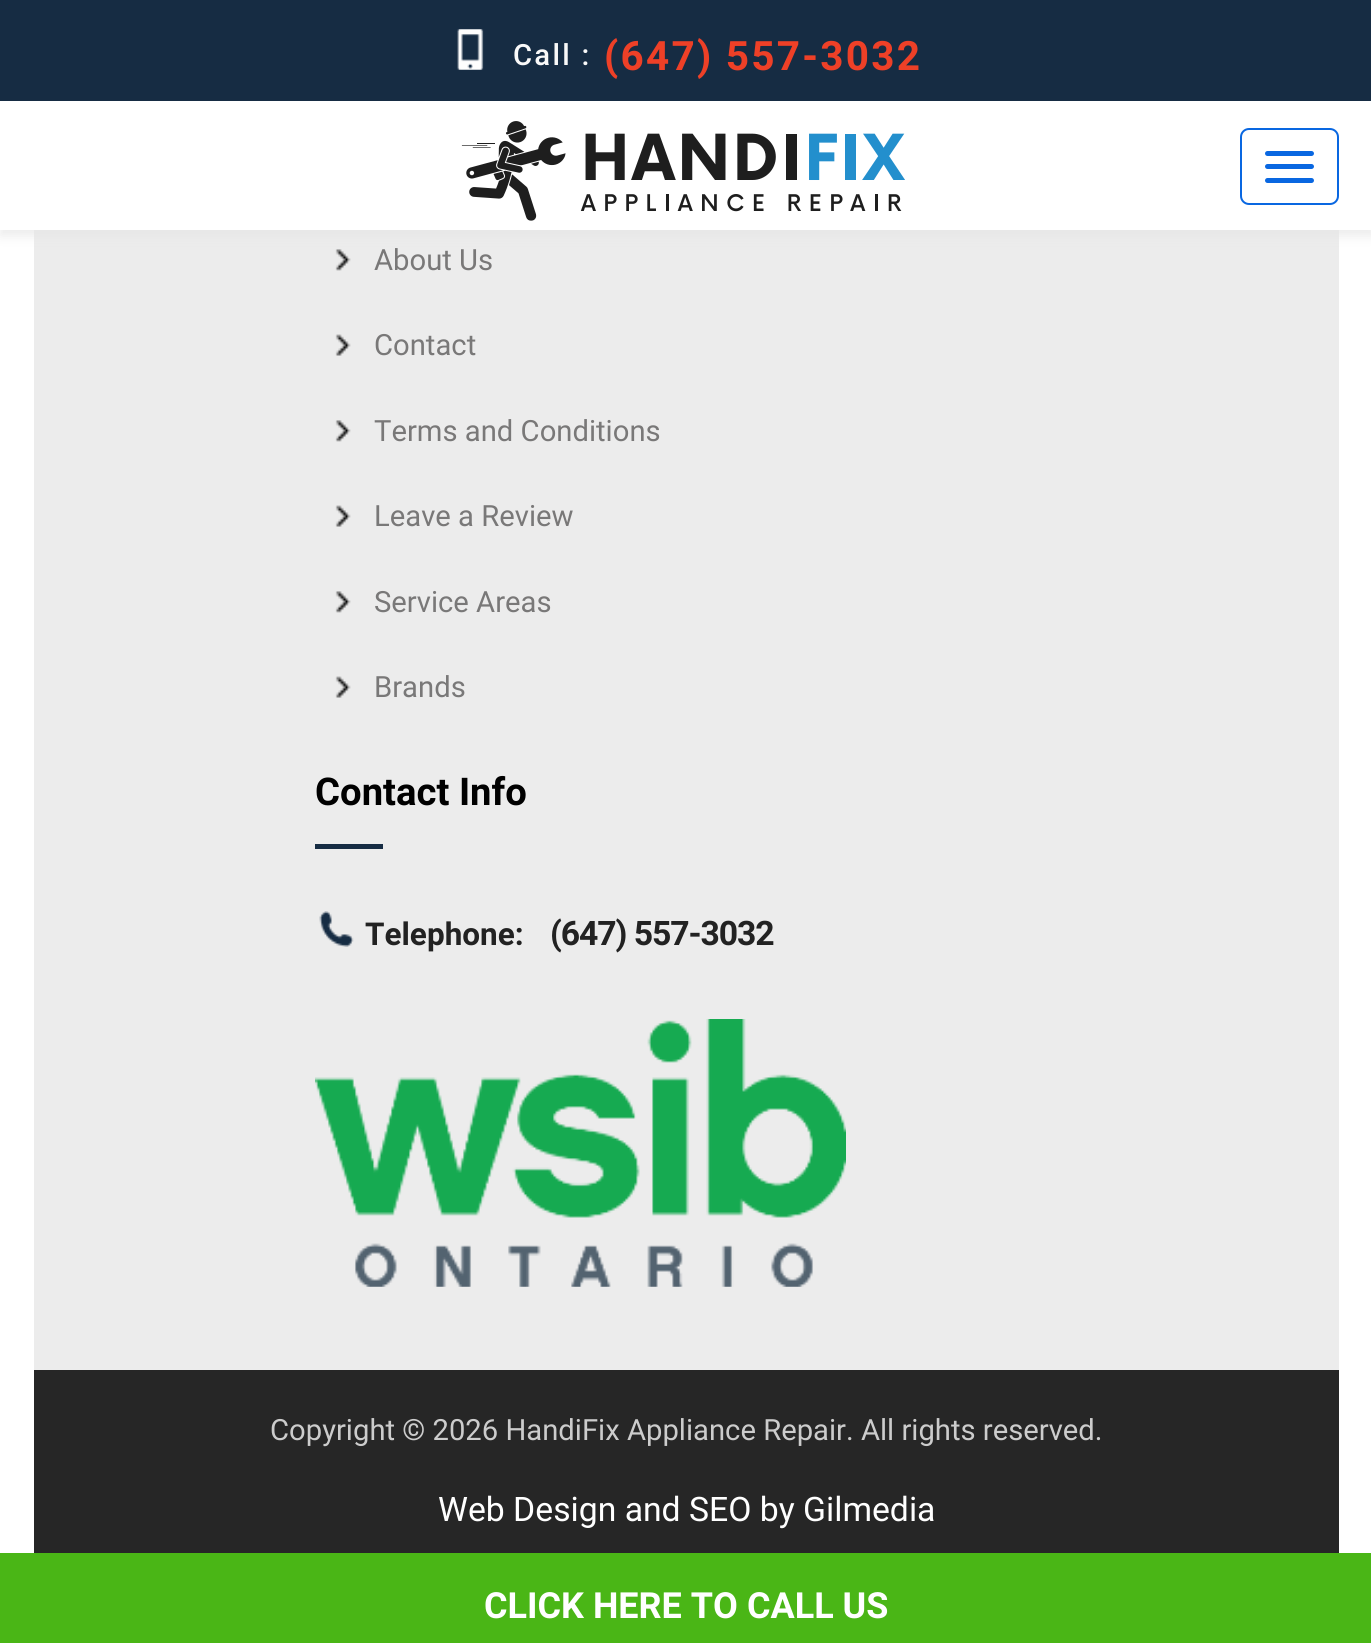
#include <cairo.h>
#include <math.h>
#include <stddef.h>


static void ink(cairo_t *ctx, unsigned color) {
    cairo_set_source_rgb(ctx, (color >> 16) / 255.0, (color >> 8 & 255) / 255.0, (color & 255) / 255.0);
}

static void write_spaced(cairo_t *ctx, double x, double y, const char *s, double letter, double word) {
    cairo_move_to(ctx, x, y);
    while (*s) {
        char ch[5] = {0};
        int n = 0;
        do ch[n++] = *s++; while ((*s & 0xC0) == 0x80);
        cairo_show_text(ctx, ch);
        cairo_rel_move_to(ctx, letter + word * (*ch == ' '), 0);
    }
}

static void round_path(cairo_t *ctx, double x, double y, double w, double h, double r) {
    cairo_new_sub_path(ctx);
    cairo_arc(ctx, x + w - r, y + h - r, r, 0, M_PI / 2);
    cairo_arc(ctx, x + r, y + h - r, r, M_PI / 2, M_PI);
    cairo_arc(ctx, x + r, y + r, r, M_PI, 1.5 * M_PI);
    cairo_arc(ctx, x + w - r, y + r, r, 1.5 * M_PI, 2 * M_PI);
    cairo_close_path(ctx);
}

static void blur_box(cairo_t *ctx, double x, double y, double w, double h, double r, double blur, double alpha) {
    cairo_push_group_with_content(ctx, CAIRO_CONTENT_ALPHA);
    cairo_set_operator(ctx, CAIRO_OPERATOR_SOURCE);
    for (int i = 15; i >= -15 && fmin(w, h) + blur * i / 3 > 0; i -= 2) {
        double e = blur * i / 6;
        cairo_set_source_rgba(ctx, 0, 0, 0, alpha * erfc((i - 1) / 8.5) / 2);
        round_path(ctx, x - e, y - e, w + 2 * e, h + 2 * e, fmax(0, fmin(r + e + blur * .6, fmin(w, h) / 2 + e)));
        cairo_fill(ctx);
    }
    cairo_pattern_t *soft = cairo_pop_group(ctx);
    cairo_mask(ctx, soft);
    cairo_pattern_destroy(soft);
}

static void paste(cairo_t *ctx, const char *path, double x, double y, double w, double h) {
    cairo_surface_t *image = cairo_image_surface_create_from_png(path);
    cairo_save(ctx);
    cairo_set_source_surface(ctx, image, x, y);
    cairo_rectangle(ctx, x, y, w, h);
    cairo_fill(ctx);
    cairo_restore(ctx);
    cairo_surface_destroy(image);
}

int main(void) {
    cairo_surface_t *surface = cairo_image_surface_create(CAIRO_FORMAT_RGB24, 1371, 1643);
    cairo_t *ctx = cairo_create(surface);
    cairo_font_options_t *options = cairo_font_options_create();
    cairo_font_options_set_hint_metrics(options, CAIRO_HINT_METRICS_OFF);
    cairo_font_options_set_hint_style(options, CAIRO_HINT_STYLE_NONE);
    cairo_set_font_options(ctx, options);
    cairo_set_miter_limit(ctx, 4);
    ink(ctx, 0xFFFFFF);
    cairo_paint(ctx);
    ink(ctx, 0xECECEC);
    cairo_rectangle(ctx, 34, 230, 1305, 1140);
    cairo_fill(ctx);
    paste(ctx, "media/3.png", 335, 249, 16, 22);
    ink(ctx, 0xE5E5E5);
    blur_box(ctx, 0, 7, 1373, 229, 0, 5.5, 0.75);
    ink(ctx, 0xFFFFFF);
    cairo_rectangle(ctx, 0, 101, 1371, 129);
    cairo_fill(ctx);
    ink(ctx, 0x162C43);
    cairo_rectangle(ctx, 0, 0, 1371, 101);
    cairo_fill(ctx);
    paste(ctx, "media/1.png", 457, 29, 27, 41);
    cairo_select_font_face(ctx, "Roboto Medium", CAIRO_FONT_SLANT_NORMAL, CAIRO_FONT_WEIGHT_NORMAL);
    cairo_set_font_size(ctx, 29.25);
    ink(ctx, 0xF9F9F9);
    write_spaced(ctx, 513, 65, "Call :", 2.25, 0);
    cairo_select_font_face(ctx, "Roboto", CAIRO_FONT_SLANT_NORMAL, CAIRO_FONT_WEIGHT_BOLD);
    cairo_set_font_size(ctx, 40.5);
    ink(ctx, 0xEE4027);
    write_spaced(ctx, 604, 70, "(647) 557-3032", 2.25, 0);
    paste(ctx, "media/2.png", 461, 121, 444, 100);
    round_path(ctx, 1241, 129, 97, 75, 8);
    ink(ctx, 0x0967E1);
    cairo_stroke(ctx);
    round_path(ctx, 1265, 151, 49, 5, 2.5);
    cairo_fill(ctx);
    round_path(ctx, 1265, 164, 49, 5, 2.5);
    cairo_fill(ctx);
    round_path(ctx, 1265, 178, 49, 5, 2.5);
    cairo_fill(ctx);
    cairo_select_font_face(ctx, "Roboto", CAIRO_FONT_SLANT_NORMAL, CAIRO_FONT_WEIGHT_NORMAL);
    cairo_set_font_size(ctx, 29.25);
    ink(ctx, 0x797878);
    cairo_move_to(ctx, 374, 270);
    cairo_show_text(ctx, "About Us");
    paste(ctx, "media/4.png", 335, 334, 16, 22);
    cairo_move_to(ctx, 374, 355);
    cairo_show_text(ctx, "Contact");
    paste(ctx, "media/3.png", 335, 420, 16, 22);
    cairo_move_to(ctx, 374, 441);
    cairo_show_text(ctx, "Terms and Conditions");
    paste(ctx, "media/4.png", 335, 505, 16, 22);
    cairo_move_to(ctx, 374, 526);
    cairo_show_text(ctx, "Leave a Review");
    paste(ctx, "media/3.png", 335, 591, 16, 22);
    cairo_move_to(ctx, 374, 612);
    cairo_show_text(ctx, "Service Areas");
    paste(ctx, "media/4.png", 335, 676, 16, 22);
    cairo_move_to(ctx, 374, 697);
    cairo_show_text(ctx, "Brands");
    cairo_select_font_face(ctx, "Roboto", CAIRO_FONT_SLANT_NORMAL, CAIRO_FONT_WEIGHT_BOLD);
    cairo_set_font_size(ctx, 38.25);
    ink(ctx, 0x000000);
    cairo_move_to(ctx, 315, 805);
    cairo_show_text(ctx, "Contact Info");
    ink(ctx, 0x162C43);
    cairo_rectangle(ctx, 315, 844, 68, 5);
    cairo_fill(ctx);
    paste(ctx, "media/5.png", 319, 911, 35, 36);
    cairo_set_font_size(ctx, 31.5);
    ink(ctx, 0x222222);
    cairo_move_to(ctx, 365, 945);
    cairo_show_text(ctx, "Telephone:");
    cairo_set_font_size(ctx, 33.75);
    write_spaced(ctx, 550, 945, "(647) 557-3032", -1.1, 0);
    paste(ctx, "media/6.png", 315, 1019, 531, 268);
    ink(ctx, 0x262626);
    cairo_rectangle(ctx, 34, 1370, 1305, 183);
    cairo_fill(ctx);
    cairo_select_font_face(ctx, "Roboto", CAIRO_FONT_SLANT_NORMAL, CAIRO_FONT_WEIGHT_NORMAL);
    cairo_set_font_size(ctx, 29.25);
    ink(ctx, 0xCCCCCC);
    cairo_move_to(ctx, 270, 1440);
    cairo_show_text(ctx, "Copyright © 2026 HandiFix Appliance Repair. All rights reserved.");
    cairo_set_font_size(ctx, 33.75);
    ink(ctx, 0xFFFFFF);
    cairo_move_to(ctx, 438, 1521);
    cairo_show_text(ctx, "Web Design and SEO by Gilmedia");
    ink(ctx, 0x4AB616);
    cairo_rectangle(ctx, 0, 1553, 1371, 90);
    cairo_fill(ctx);
    cairo_select_font_face(ctx, "Roboto", CAIRO_FONT_SLANT_NORMAL, CAIRO_FONT_WEIGHT_BOLD);
    cairo_set_font_size(ctx, 36);
    ink(ctx, 0xFFFFFF);
    cairo_move_to(ctx, 484, 1618);
    cairo_show_text(ctx, "CLICK HERE TO CALL US");
    cairo_surface_write_to_png(surface, "image.png");
    cairo_font_options_destroy(options);
    cairo_destroy(ctx);
    cairo_surface_destroy(surface);
    return 0;
}
